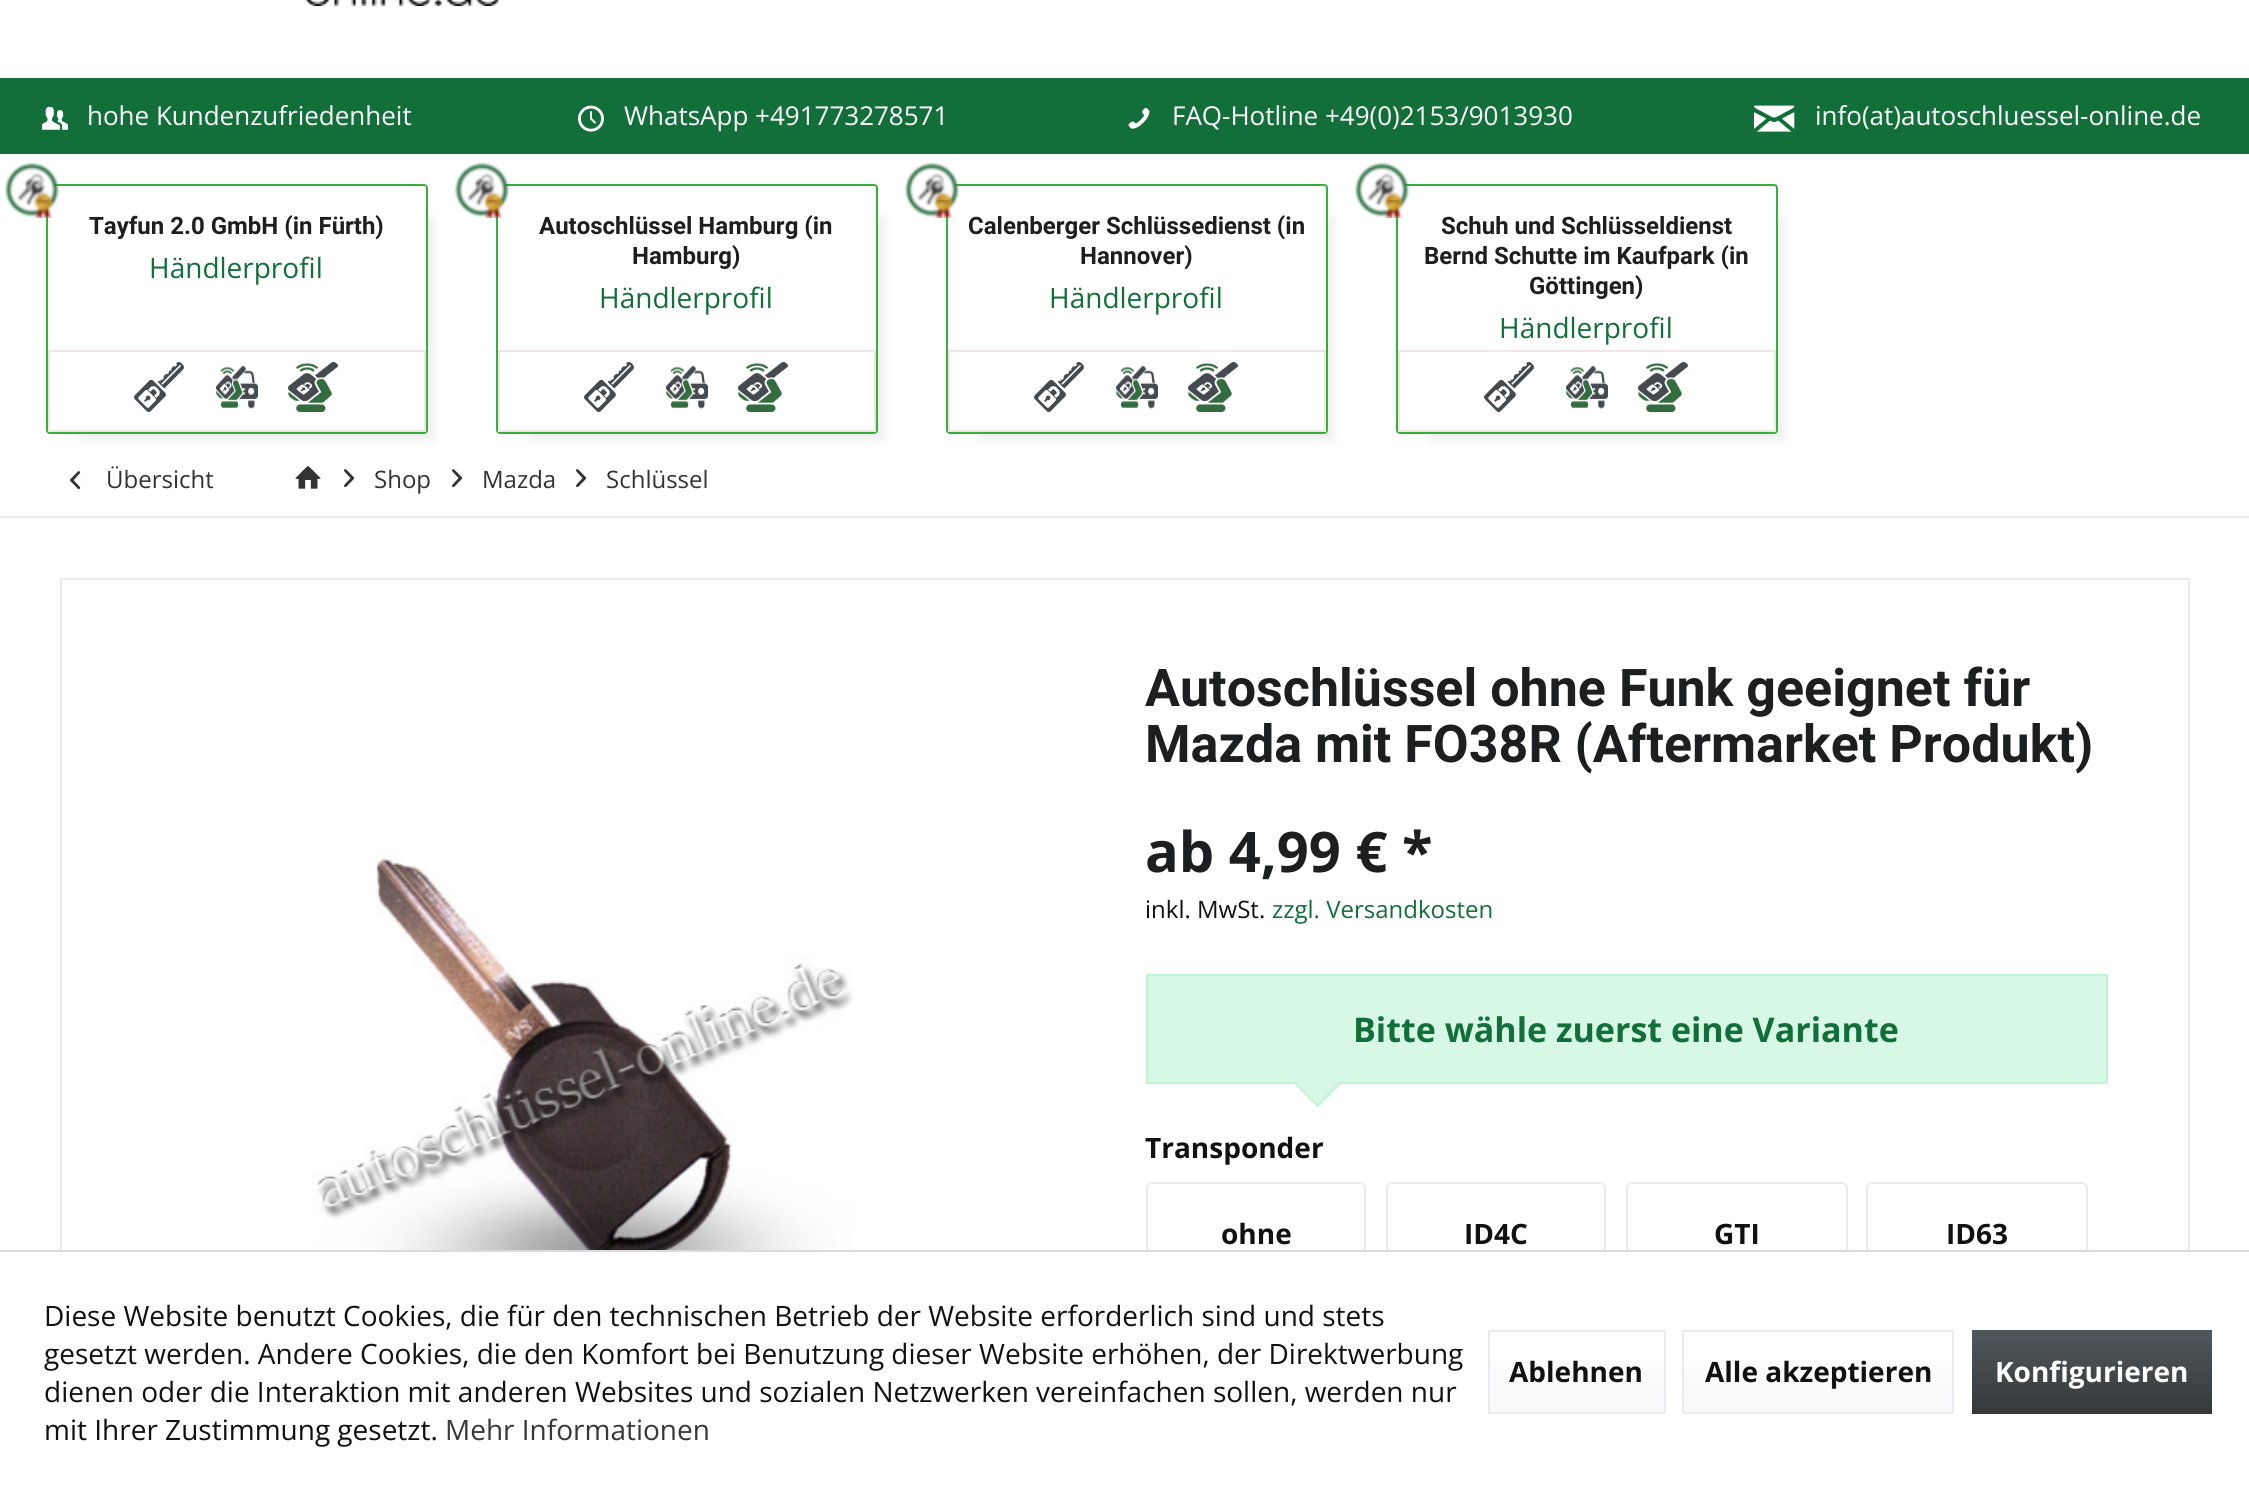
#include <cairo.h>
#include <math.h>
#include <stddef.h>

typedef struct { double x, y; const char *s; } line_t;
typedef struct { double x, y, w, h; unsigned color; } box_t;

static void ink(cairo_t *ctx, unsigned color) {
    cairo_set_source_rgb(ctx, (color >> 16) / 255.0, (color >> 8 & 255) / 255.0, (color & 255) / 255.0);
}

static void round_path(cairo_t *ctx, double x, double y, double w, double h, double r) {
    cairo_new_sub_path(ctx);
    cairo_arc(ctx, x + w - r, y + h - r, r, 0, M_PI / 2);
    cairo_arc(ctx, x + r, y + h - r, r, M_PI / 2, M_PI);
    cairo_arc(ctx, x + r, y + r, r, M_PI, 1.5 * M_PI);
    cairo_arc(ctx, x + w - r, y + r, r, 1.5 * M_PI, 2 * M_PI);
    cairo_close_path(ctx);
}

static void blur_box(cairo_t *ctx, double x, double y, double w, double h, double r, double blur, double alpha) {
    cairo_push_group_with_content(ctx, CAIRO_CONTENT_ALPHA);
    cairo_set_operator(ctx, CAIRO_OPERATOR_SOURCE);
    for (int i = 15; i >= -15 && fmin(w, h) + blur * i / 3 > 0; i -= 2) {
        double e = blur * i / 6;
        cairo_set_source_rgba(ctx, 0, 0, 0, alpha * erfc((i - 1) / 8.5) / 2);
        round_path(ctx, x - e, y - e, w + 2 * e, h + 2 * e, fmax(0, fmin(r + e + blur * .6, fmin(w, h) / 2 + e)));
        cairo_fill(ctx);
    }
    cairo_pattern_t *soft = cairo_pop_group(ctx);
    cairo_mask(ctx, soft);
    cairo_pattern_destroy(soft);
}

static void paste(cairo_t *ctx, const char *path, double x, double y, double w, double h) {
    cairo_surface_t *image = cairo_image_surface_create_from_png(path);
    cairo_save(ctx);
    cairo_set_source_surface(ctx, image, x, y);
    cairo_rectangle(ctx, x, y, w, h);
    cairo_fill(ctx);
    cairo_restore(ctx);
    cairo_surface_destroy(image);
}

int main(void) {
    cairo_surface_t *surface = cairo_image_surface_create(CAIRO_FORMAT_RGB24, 2249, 1491);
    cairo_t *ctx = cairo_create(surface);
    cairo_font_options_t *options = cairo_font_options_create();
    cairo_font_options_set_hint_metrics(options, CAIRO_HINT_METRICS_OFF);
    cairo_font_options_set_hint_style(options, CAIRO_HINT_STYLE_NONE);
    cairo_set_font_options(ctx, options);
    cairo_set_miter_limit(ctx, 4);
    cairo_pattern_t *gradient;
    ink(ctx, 0xFFFFFF);
    cairo_paint(ctx);
    paste(ctx, "media/1.png", 304, 0, 195, 6);
    ink(ctx, 0x136F39);
    cairo_rectangle(ctx, 0, 78, 2249, 76);
    cairo_fill(ctx);
    paste(ctx, "media/2.png", 42, 106, 26, 24);
    cairo_select_font_face(ctx, "Open Sans", CAIRO_FONT_SLANT_NORMAL, CAIRO_FONT_WEIGHT_NORMAL);
    cairo_set_font_size(ctx, 26);
    ink(ctx, 0xFFFFFF);
    cairo_move_to(ctx, 87, 125);
    cairo_show_text(ctx, "hohe Kundenzufriedenheit");
    paste(ctx, "media/3.png", 578, 105, 26, 27);
    cairo_move_to(ctx, 624, 125);
    cairo_show_text(ctx, "WhatsApp +491773278571");
    paste(ctx, "media/4.png", 1128, 107, 22, 22);
    cairo_move_to(ctx, 1172, 125);
    cairo_show_text(ctx, "FAQ-Hotline +49(0)2153/9013930");
    paste(ctx, "media/5.png", 1754, 105, 41, 27);
    cairo_move_to(ctx, 1815, 125);
    cairo_show_text(ctx, "info(at)autoschluessel-online.de");
    cairo_save(ctx);
    cairo_set_fill_rule(ctx, CAIRO_FILL_RULE_EVEN_ODD);
    cairo_new_path(ctx);
    cairo_move_to(ctx, 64, 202);
    cairo_line_to(ctx, 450, 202);
    cairo_line_to(ctx, 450, 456);
    cairo_line_to(ctx, 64, 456);
    cairo_close_path(ctx);
    cairo_move_to(ctx, 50, 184);
    cairo_line_to(ctx, 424, 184);
    cairo_curve_to(ctx, 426, 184, 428, 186, 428, 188);
    cairo_line_to(ctx, 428, 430);
    cairo_curve_to(ctx, 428, 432, 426, 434, 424, 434);
    cairo_line_to(ctx, 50, 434);
    cairo_curve_to(ctx, 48, 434, 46, 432, 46, 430);
    cairo_line_to(ctx, 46, 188);
    cairo_curve_to(ctx, 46, 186, 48, 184, 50, 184);
    cairo_close_path(ctx);
    cairo_clip(ctx);
    ink(ctx, 0x000000);
    blur_box(ctx, 80, 218, 354, 222, 0, 5, 0.07);
    cairo_restore(ctx);
    round_path(ctx, 47, 185, 380, 248, 3);
    ink(ctx, 0x37B03A);
    cairo_stroke(ctx);
    paste(ctx, "media/6.png", 4, 162, 56, 56);
    cairo_select_font_face(ctx, "Roboto", CAIRO_FONT_SLANT_NORMAL, CAIRO_FONT_WEIGHT_BOLD);
    cairo_set_font_size(ctx, 24);
    ink(ctx, 0x1D1E1F);
    cairo_move_to(ctx, 89, 234);
    cairo_show_text(ctx, "Tayfun 2.0 GmbH (in Fürth)");
    cairo_select_font_face(ctx, "Open Sans", CAIRO_FONT_SLANT_NORMAL, CAIRO_FONT_WEIGHT_NORMAL);
    cairo_set_font_size(ctx, 28);
    ink(ctx, 0x136F39);
    cairo_move_to(ctx, 149, 278);
    cairo_show_text(ctx, "Händlerprofil");
    cairo_rectangle(ctx, 49, 351, 376, 80);
    ink(ctx, 0xF2E5E5);
    cairo_stroke(ctx);
    paste(ctx, "media/7.png", 134, 362, 50, 50);
    paste(ctx, "media/8.png", 216, 365, 42, 44);
    paste(ctx, "media/9.png", 288, 362, 50, 50);
    cairo_save(ctx);
    cairo_set_fill_rule(ctx, CAIRO_FILL_RULE_EVEN_ODD);
    cairo_new_path(ctx);
    cairo_move_to(ctx, 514, 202);
    cairo_line_to(ctx, 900, 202);
    cairo_line_to(ctx, 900, 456);
    cairo_line_to(ctx, 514, 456);
    cairo_close_path(ctx);
    cairo_move_to(ctx, 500, 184);
    cairo_line_to(ctx, 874, 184);
    cairo_curve_to(ctx, 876, 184, 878, 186, 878, 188);
    cairo_line_to(ctx, 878, 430);
    cairo_curve_to(ctx, 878, 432, 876, 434, 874, 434);
    cairo_line_to(ctx, 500, 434);
    cairo_curve_to(ctx, 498, 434, 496, 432, 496, 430);
    cairo_line_to(ctx, 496, 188);
    cairo_curve_to(ctx, 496, 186, 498, 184, 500, 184);
    cairo_close_path(ctx);
    cairo_clip(ctx);
    ink(ctx, 0x000000);
    blur_box(ctx, 530, 218, 354, 222, 0, 5, 0.07);
    cairo_restore(ctx);
    round_path(ctx, 497, 185, 380, 248, 3);
    ink(ctx, 0x37B03A);
    cairo_stroke(ctx);
    paste(ctx, "media/6.png", 454, 162, 56, 56);
    cairo_select_font_face(ctx, "Roboto", CAIRO_FONT_SLANT_NORMAL, CAIRO_FONT_WEIGHT_BOLD);
    cairo_set_font_size(ctx, 24);
    ink(ctx, 0x1D1E1F);
    cairo_move_to(ctx, 539, 234);
    cairo_show_text(ctx, "Autoschlüssel Hamburg (in");
    cairo_move_to(ctx, 632, 264);
    cairo_show_text(ctx, "Hamburg)");
    cairo_select_font_face(ctx, "Open Sans", CAIRO_FONT_SLANT_NORMAL, CAIRO_FONT_WEIGHT_NORMAL);
    cairo_set_font_size(ctx, 28);
    ink(ctx, 0x136F39);
    cairo_move_to(ctx, 599, 308);
    cairo_show_text(ctx, "Händlerprofil");
    cairo_rectangle(ctx, 499, 351, 376, 80);
    ink(ctx, 0xF2E5E5);
    cairo_stroke(ctx);
    paste(ctx, "media/7.png", 584, 362, 50, 50);
    paste(ctx, "media/8.png", 666, 365, 42, 44);
    paste(ctx, "media/9.png", 738, 362, 50, 50);
    cairo_save(ctx);
    cairo_set_fill_rule(ctx, CAIRO_FILL_RULE_EVEN_ODD);
    cairo_new_path(ctx);
    cairo_move_to(ctx, 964, 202);
    cairo_line_to(ctx, 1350, 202);
    cairo_line_to(ctx, 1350, 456);
    cairo_line_to(ctx, 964, 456);
    cairo_close_path(ctx);
    cairo_move_to(ctx, 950, 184);
    cairo_line_to(ctx, 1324, 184);
    cairo_curve_to(ctx, 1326, 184, 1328, 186, 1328, 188);
    cairo_line_to(ctx, 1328, 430);
    cairo_curve_to(ctx, 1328, 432, 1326, 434, 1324, 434);
    cairo_line_to(ctx, 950, 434);
    cairo_curve_to(ctx, 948, 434, 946, 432, 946, 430);
    cairo_line_to(ctx, 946, 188);
    cairo_curve_to(ctx, 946, 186, 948, 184, 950, 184);
    cairo_close_path(ctx);
    cairo_clip(ctx);
    ink(ctx, 0x000000);
    blur_box(ctx, 980, 218, 354, 222, 0, 5, 0.07);
    cairo_restore(ctx);
    round_path(ctx, 947, 185, 380, 248, 3);
    ink(ctx, 0x37B03A);
    cairo_stroke(ctx);
    paste(ctx, "media/6.png", 904, 162, 56, 56);
    cairo_select_font_face(ctx, "Roboto", CAIRO_FONT_SLANT_NORMAL, CAIRO_FONT_WEIGHT_BOLD);
    cairo_set_font_size(ctx, 24);
    ink(ctx, 0x1D1E1F);
    cairo_move_to(ctx, 968, 234);
    cairo_show_text(ctx, "Calenberger Schlüssedienst (in");
    cairo_move_to(ctx, 1080, 264);
    cairo_show_text(ctx, "Hannover)");
    cairo_select_font_face(ctx, "Open Sans", CAIRO_FONT_SLANT_NORMAL, CAIRO_FONT_WEIGHT_NORMAL);
    cairo_set_font_size(ctx, 28);
    ink(ctx, 0x136F39);
    cairo_move_to(ctx, 1049, 308);
    cairo_show_text(ctx, "Händlerprofil");
    cairo_rectangle(ctx, 949, 351, 376, 80);
    ink(ctx, 0xF2E5E5);
    cairo_stroke(ctx);
    paste(ctx, "media/7.png", 1034, 362, 50, 50);
    paste(ctx, "media/8.png", 1116, 365, 42, 44);
    paste(ctx, "media/9.png", 1188, 362, 50, 50);
    cairo_save(ctx);
    cairo_set_fill_rule(ctx, CAIRO_FILL_RULE_EVEN_ODD);
    cairo_new_path(ctx);
    cairo_move_to(ctx, 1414, 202);
    cairo_line_to(ctx, 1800, 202);
    cairo_line_to(ctx, 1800, 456);
    cairo_line_to(ctx, 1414, 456);
    cairo_close_path(ctx);
    cairo_move_to(ctx, 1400, 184);
    cairo_line_to(ctx, 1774, 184);
    cairo_curve_to(ctx, 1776, 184, 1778, 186, 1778, 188);
    cairo_line_to(ctx, 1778, 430);
    cairo_curve_to(ctx, 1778, 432, 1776, 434, 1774, 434);
    cairo_line_to(ctx, 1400, 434);
    cairo_curve_to(ctx, 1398, 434, 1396, 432, 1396, 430);
    cairo_line_to(ctx, 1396, 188);
    cairo_curve_to(ctx, 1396, 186, 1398, 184, 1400, 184);
    cairo_close_path(ctx);
    cairo_clip(ctx);
    ink(ctx, 0x000000);
    blur_box(ctx, 1430, 218, 354, 222, 0, 5, 0.07);
    cairo_restore(ctx);
    round_path(ctx, 1397, 185, 380, 248, 3);
    ink(ctx, 0x37B03A);
    cairo_stroke(ctx);
    paste(ctx, "media/6.png", 1354, 162, 56, 56);
    cairo_select_font_face(ctx, "Roboto", CAIRO_FONT_SLANT_NORMAL, CAIRO_FONT_WEIGHT_BOLD);
    cairo_set_font_size(ctx, 24);
    ink(ctx, 0x1D1E1F);
    {
        static const line_t items[] = {
            {1441, 234, "Schuh und Schlüsseldienst"},
            {1424, 264, "Bernd Schutte im Kaufpark (in"},
            {1529, 294, "Göttingen)"},
        };
        for (size_t i = 0; i < sizeof items / sizeof *items; i++) {
            cairo_move_to(ctx, items[i].x, items[i].y);
            cairo_show_text(ctx, items[i].s);
        }
    }
    cairo_select_font_face(ctx, "Open Sans", CAIRO_FONT_SLANT_NORMAL, CAIRO_FONT_WEIGHT_NORMAL);
    cairo_set_font_size(ctx, 28);
    ink(ctx, 0x136F39);
    cairo_move_to(ctx, 1499, 338);
    cairo_show_text(ctx, "Händlerprofil");
    cairo_rectangle(ctx, 1399, 351, 376, 80);
    ink(ctx, 0xF2E5E5);
    cairo_stroke(ctx);
    paste(ctx, "media/7.png", 1484, 362, 50, 50);
    paste(ctx, "media/8.png", 1566, 365, 42, 44);
    paste(ctx, "media/9.png", 1638, 362, 50, 50);
    ink(ctx, 0xEAEAF0);
    cairo_rectangle(ctx, 0, 516, 2249, 2);
    cairo_fill(ctx);
    paste(ctx, "media/10.png", 70, 471, 11, 19);
    cairo_set_font_size(ctx, 24);
    ink(ctx, 0x333333);
    cairo_move_to(ctx, 106, 488);
    cairo_show_text(ctx, "Übersicht");
    paste(ctx, "media/11.png", 295, 466, 26, 23);
    paste(ctx, "media/12.png", 344, 469, 11, 19);
    cairo_move_to(ctx, 374, 488);
    cairo_show_text(ctx, "Shop");
    paste(ctx, "media/12.png", 452, 469, 11, 19);
    cairo_move_to(ctx, 482, 488);
    cairo_show_text(ctx, "Mazda");
    paste(ctx, "media/12.png", 576, 469, 11, 19);
    cairo_move_to(ctx, 606, 488);
    cairo_show_text(ctx, "Schlüssel");
    {
        static const box_t items[] = {
            {60, 578, 2130, 2, 0xEAEAF0},
            {2188, 578, 2, 672, 0xEAEAF0},
            {60, 578, 2, 672, 0xEAEAF0},
        };
        for (size_t i = 0; i < sizeof items / sizeof *items; i++) {
            ink(ctx, items[i].color);
            cairo_rectangle(ctx, items[i].x, items[i].y, items[i].w, items[i].h);
            cairo_fill(ctx);
        }
    }
    paste(ctx, "media/13.png", 312, 852, 542, 398);
    cairo_select_font_face(ctx, "Roboto", CAIRO_FONT_SLANT_NORMAL, CAIRO_FONT_WEIGHT_BOLD);
    cairo_set_font_size(ctx, 52);
    ink(ctx, 0x1D1E1F);
    cairo_move_to(ctx, 1145, 706);
    cairo_show_text(ctx, "Autoschlüssel ohne Funk geeignet für");
    cairo_move_to(ctx, 1145, 762);
    cairo_show_text(ctx, "Mazda mit FO38R (Aftermarket Produkt)");
    cairo_select_font_face(ctx, "Open Sans", CAIRO_FONT_SLANT_NORMAL, CAIRO_FONT_WEIGHT_BOLD);
    cairo_set_font_size(ctx, 56);
    cairo_move_to(ctx, 1145, 872);
    cairo_show_text(ctx, "ab 4,99 € *");
    cairo_select_font_face(ctx, "Open Sans", CAIRO_FONT_SLANT_NORMAL, CAIRO_FONT_WEIGHT_NORMAL);
    cairo_set_font_size(ctx, 24);
    ink(ctx, 0x111111);
    cairo_move_to(ctx, 1145, 918);
    cairo_show_text(ctx, "inkl. MwSt.");
    ink(ctx, 0x136F39);
    cairo_move_to(ctx, 1272, 918);
    cairo_show_text(ctx, "zzgl. Versandkosten");
    ink(ctx, 0xD6F8E4);
    cairo_rectangle(ctx, 1147, 975, 960, 108);
    cairo_fill_preserve(ctx);
    ink(ctx, 0xC0F4D5);
    cairo_stroke(ctx);
    cairo_select_font_face(ctx, "Open Sans", CAIRO_FONT_SLANT_NORMAL, CAIRO_FONT_WEIGHT_BOLD);
    cairo_set_font_size(ctx, 34);
    ink(ctx, 0x136F39);
    cairo_move_to(ctx, 1353, 1042);
    cairo_show_text(ctx, "Bitte wähle zuerst eine Variante");
    ink(ctx, 0xD6F8E4);
    cairo_new_path(ctx);
    cairo_move_to(ctx, 1342, 1083);
    cairo_line_to(ctx, 1318, 1107);
    cairo_line_to(ctx, 1294, 1083);
    cairo_line_to(ctx, 1318, 1059);
    cairo_close_path(ctx);
    cairo_fill(ctx);
    ink(ctx, 0xC0F4D5);
    cairo_new_path(ctx);
    cairo_move_to(ctx, 1341.5, 1083);
    cairo_line_to(ctx, 1317.5, 1107);
    cairo_line_to(ctx, 1316, 1105.5);
    cairo_line_to(ctx, 1340, 1081.5);
    cairo_close_path(ctx);
    cairo_fill(ctx);
    cairo_new_path(ctx);
    cairo_move_to(ctx, 1319, 1105.5);
    cairo_line_to(ctx, 1317.5, 1107);
    cairo_line_to(ctx, 1293.5, 1083);
    cairo_line_to(ctx, 1295, 1081.5);
    cairo_close_path(ctx);
    cairo_fill(ctx);
    cairo_set_font_size(ctx, 28);
    ink(ctx, 0x111111);
    cairo_move_to(ctx, 1145, 1158);
    cairo_show_text(ctx, "Transponder");
    round_path(ctx, 1147, 1183, 218, 98, 5);
    ink(ctx, 0xEAEAF0);
    cairo_stroke(ctx);
    ink(ctx, 0x111111);
    cairo_move_to(ctx, 1221, 1244);
    cairo_show_text(ctx, "ohne");
    round_path(ctx, 1387, 1183, 218, 98, 5);
    ink(ctx, 0xEAEAF0);
    cairo_stroke(ctx);
    ink(ctx, 0x111111);
    cairo_move_to(ctx, 1464, 1244);
    cairo_show_text(ctx, "ID4C");
    round_path(ctx, 1627, 1183, 220, 98, 5);
    ink(ctx, 0xEAEAF0);
    cairo_stroke(ctx);
    ink(ctx, 0x111111);
    cairo_move_to(ctx, 1714, 1244);
    cairo_show_text(ctx, "GTI");
    round_path(ctx, 1867, 1183, 220, 98, 5);
    ink(ctx, 0xEAEAF0);
    cairo_stroke(ctx);
    ink(ctx, 0x111111);
    cairo_move_to(ctx, 1946, 1244);
    cairo_show_text(ctx, "ID63");
    ink(ctx, 0xFFFFFF);
    cairo_rectangle(ctx, 1146, 1252, 942, 30);
    cairo_fill(ctx);
    ink(ctx, 0xDADAE5);
    cairo_rectangle(ctx, 0, 1250, 2249, 2);
    cairo_fill(ctx);
    cairo_select_font_face(ctx, "Open Sans", CAIRO_FONT_SLANT_NORMAL, CAIRO_FONT_WEIGHT_NORMAL);
    ink(ctx, 0x111111);
    {
        static const line_t items[] = {
            {44, 1326, "Diese Website benutzt Cookies, die für den technischen Betrieb der Website erforderlich sind und stets"},
            {44, 1364, "gesetzt werden. Andere Cookies, die den Komfort bei Benutzung dieser Website erhöhen, der Direktwerbung"},
            {44, 1402, "dienen oder die Interaktion mit anderen Websites und sozialen Netzwerken vereinfachen sollen, werden nur"},
            {44, 1440, "mit Ihrer Zustimmung gesetzt."},
        };
        for (size_t i = 0; i < sizeof items / sizeof *items; i++) {
            cairo_move_to(ctx, items[i].x, items[i].y);
            cairo_show_text(ctx, items[i].s);
        }
    }
    ink(ctx, 0x363839);
    cairo_move_to(ctx, 445, 1440);
    cairo_show_text(ctx, "Mehr Informationen");
    gradient = cairo_pattern_create_linear(1577, 1332, 1577, 1412);
    cairo_pattern_add_color_stop_rgba(gradient, 0, 1, 1, 1, 1);
    cairo_pattern_add_color_stop_rgba(gradient, 1, 0.973, 0.973, 0.98, 1);
    cairo_set_source(ctx, gradient);
    cairo_pattern_destroy(gradient);
    cairo_rectangle(ctx, 1490, 1361, 174, 51);
    cairo_fill(ctx);
    cairo_rectangle(ctx, 1489, 1331, 176, 82);
    ink(ctx, 0xEAEAF0);
    cairo_stroke(ctx);
    cairo_select_font_face(ctx, "Open Sans", CAIRO_FONT_SLANT_NORMAL, CAIRO_FONT_WEIGHT_BOLD);
    ink(ctx, 0x111111);
    cairo_move_to(ctx, 1509, 1382);
    cairo_show_text(ctx, "Ablehnen");
    gradient = cairo_pattern_create_linear(1818, 1332, 1818, 1412);
    cairo_pattern_add_color_stop_rgba(gradient, 0, 1, 1, 1, 1);
    cairo_pattern_add_color_stop_rgba(gradient, 1, 0.973, 0.973, 0.98, 1);
    cairo_set_source(ctx, gradient);
    cairo_pattern_destroy(gradient);
    cairo_rectangle(ctx, 1684, 1361, 268, 51);
    cairo_fill(ctx);
    cairo_rectangle(ctx, 1683, 1331, 270, 82);
    ink(ctx, 0xEAEAF0);
    cairo_stroke(ctx);
    ink(ctx, 0x111111);
    cairo_move_to(ctx, 1705, 1382);
    cairo_show_text(ctx, "Alle akzeptieren");
    gradient = cairo_pattern_create_linear(2092, 1330, 2092, 1414);
    cairo_pattern_add_color_stop_rgba(gradient, 0, 0.31, 0.345, 0.365, 1);
    cairo_pattern_add_color_stop_rgba(gradient, 1, 0.212, 0.22, 0.224, 1);
    cairo_set_source(ctx, gradient);
    cairo_pattern_destroy(gradient);
    cairo_rectangle(ctx, 1972, 1330, 240, 84);
    cairo_fill(ctx);
    ink(ctx, 0xFFFFFF);
    cairo_move_to(ctx, 1995, 1382);
    cairo_show_text(ctx, "Konfigurieren");
    cairo_surface_write_to_png(surface, "image.png");
    cairo_font_options_destroy(options);
    cairo_destroy(ctx);
    cairo_surface_destroy(surface);
    return 0;
}
